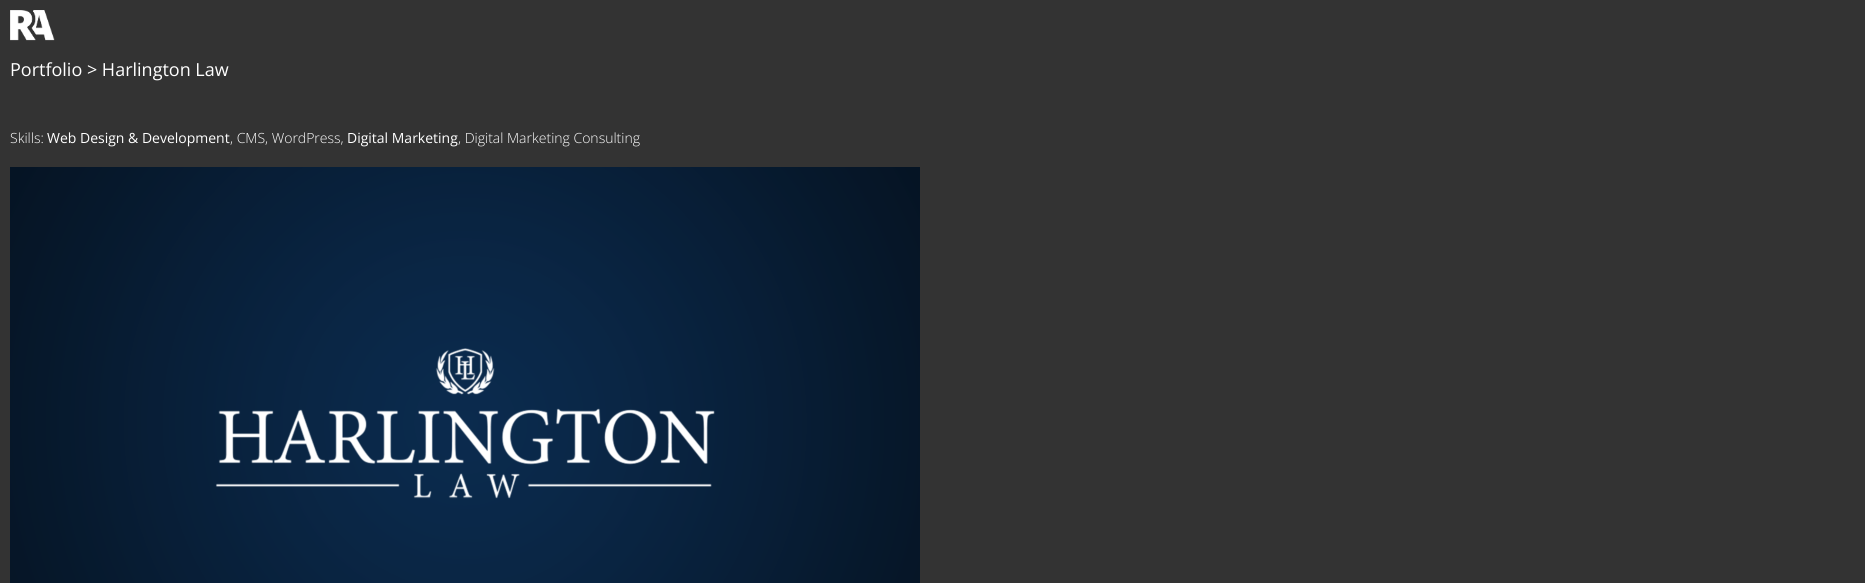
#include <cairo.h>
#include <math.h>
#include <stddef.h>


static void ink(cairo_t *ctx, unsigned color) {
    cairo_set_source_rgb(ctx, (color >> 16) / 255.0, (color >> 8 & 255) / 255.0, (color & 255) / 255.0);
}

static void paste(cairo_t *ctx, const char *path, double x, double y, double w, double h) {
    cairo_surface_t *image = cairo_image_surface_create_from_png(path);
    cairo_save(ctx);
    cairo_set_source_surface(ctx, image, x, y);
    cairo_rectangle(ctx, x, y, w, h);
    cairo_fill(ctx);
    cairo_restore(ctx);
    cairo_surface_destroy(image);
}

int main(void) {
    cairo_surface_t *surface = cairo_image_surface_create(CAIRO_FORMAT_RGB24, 1865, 583);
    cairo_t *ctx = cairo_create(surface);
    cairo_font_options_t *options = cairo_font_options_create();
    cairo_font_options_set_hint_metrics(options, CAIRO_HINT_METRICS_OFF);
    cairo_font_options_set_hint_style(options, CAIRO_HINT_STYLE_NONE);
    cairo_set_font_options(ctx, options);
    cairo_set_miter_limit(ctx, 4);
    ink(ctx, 0x333333);
    cairo_paint(ctx);
    paste(ctx, "media/1.png", 10, 10, 45, 31);
    cairo_select_font_face(ctx, "Open Sans", CAIRO_FONT_SLANT_NORMAL, CAIRO_FONT_WEIGHT_NORMAL);
    cairo_set_font_size(ctx, 18);
    ink(ctx, 0xFFFFFF);
    cairo_move_to(ctx, 10, 76);
    cairo_show_text(ctx, "Portfolio > Harlington Law");
    cairo_select_font_face(ctx, "Open Sans Light", CAIRO_FONT_SLANT_NORMAL, CAIRO_FONT_WEIGHT_NORMAL);
    cairo_set_font_size(ctx, 14);
    cairo_move_to(ctx, 10, 143);
    cairo_show_text(ctx, "Skills:");
    cairo_select_font_face(ctx, "Open Sans", CAIRO_FONT_SLANT_NORMAL, CAIRO_FONT_WEIGHT_NORMAL);
    cairo_move_to(ctx, 47, 143);
    cairo_show_text(ctx, "Web Design & Development");
    cairo_select_font_face(ctx, "Open Sans Light", CAIRO_FONT_SLANT_NORMAL, CAIRO_FONT_WEIGHT_NORMAL);
    cairo_move_to(ctx, 230, 143);
    cairo_show_text(ctx, ", CMS, WordPress,");
    cairo_select_font_face(ctx, "Open Sans", CAIRO_FONT_SLANT_NORMAL, CAIRO_FONT_WEIGHT_NORMAL);
    cairo_move_to(ctx, 347, 143);
    cairo_show_text(ctx, "Digital Marketing");
    cairo_select_font_face(ctx, "Open Sans Light", CAIRO_FONT_SLANT_NORMAL, CAIRO_FONT_WEIGHT_NORMAL);
    cairo_move_to(ctx, 458, 143);
    cairo_show_text(ctx, ", Digital Marketing Consulting");
    paste(ctx, "media/2.png", 10, 167, 910, 416);
    cairo_surface_write_to_png(surface, "image.png");
    cairo_font_options_destroy(options);
    cairo_destroy(ctx);
    cairo_surface_destroy(surface);
    return 0;
}
